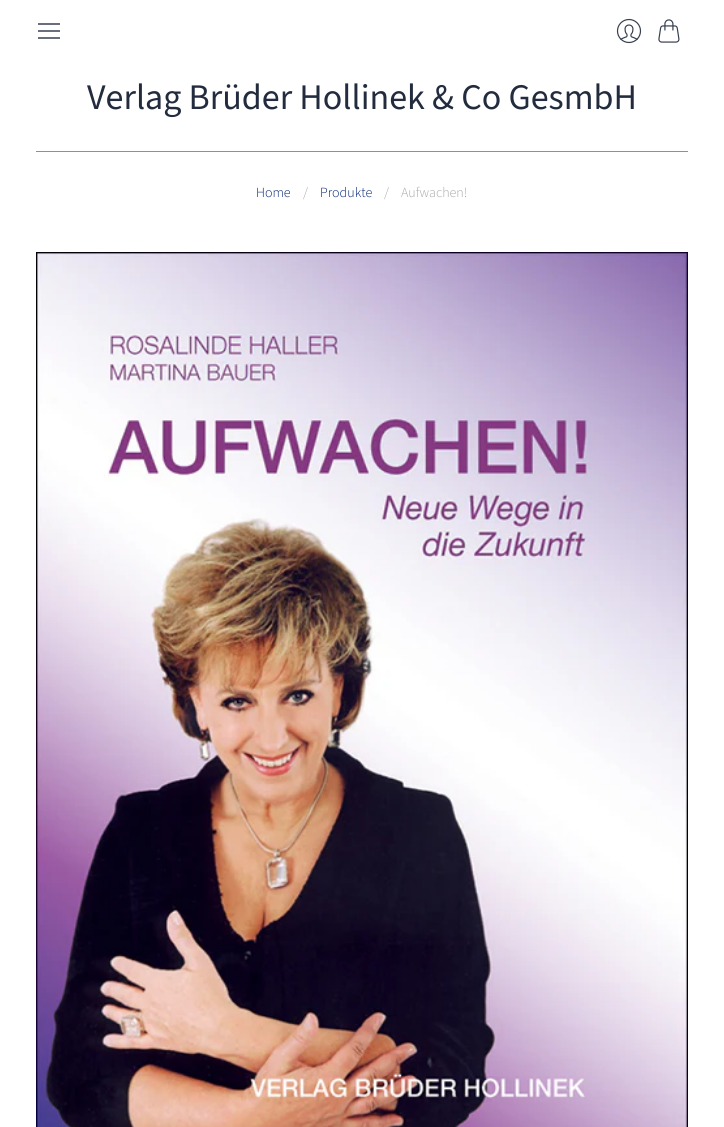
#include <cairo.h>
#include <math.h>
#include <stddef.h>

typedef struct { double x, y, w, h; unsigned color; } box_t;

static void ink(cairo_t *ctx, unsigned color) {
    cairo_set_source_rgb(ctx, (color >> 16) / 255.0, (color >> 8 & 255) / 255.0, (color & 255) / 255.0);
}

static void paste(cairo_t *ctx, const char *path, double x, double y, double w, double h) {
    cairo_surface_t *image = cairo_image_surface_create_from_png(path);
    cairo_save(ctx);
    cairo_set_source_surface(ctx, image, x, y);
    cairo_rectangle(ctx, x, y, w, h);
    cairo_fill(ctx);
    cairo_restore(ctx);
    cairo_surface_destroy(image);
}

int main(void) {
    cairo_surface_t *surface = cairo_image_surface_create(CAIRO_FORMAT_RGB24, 724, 1127);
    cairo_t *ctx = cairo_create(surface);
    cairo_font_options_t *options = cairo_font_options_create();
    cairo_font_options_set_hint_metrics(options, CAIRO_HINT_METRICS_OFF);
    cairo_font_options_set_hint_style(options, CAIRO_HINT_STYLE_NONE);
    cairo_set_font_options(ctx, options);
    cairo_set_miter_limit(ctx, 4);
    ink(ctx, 0xFFFFFF);
    cairo_paint(ctx);
    {
        static const box_t items[] = {
            {38, 23, 22, 2, 0x686E7B},
            {38, 30, 22, 2, 0x686E7B},
            {38, 37, 22, 2, 0x686E7B},
        };
        for (size_t i = 0; i < sizeof items / sizeof *items; i++) {
            ink(ctx, items[i].color);
            cairo_rectangle(ctx, items[i].x, items[i].y, items[i].w, items[i].h);
            cairo_fill(ctx);
        }
    }
    paste(ctx, "media/1.png", 616, 18, 26, 26);
    paste(ctx, "media/2.png", 658, 19, 22, 24);
    ink(ctx, 0x8D9095);
    cairo_rectangle(ctx, 36, 151, 652, 1);
    cairo_fill(ctx);
    cairo_select_font_face(ctx, "Source Sans Pro", CAIRO_FONT_SLANT_NORMAL, CAIRO_FONT_WEIGHT_NORMAL);
    cairo_set_font_size(ctx, 36);
    ink(ctx, 0x232C3F);
    cairo_move_to(ctx, 87, 109);
    cairo_show_text(ctx, "Verlag Brüder Hollinek & Co GesmbH");
    cairo_select_font_face(ctx, "Source Sans Pro Light", CAIRO_FONT_SLANT_NORMAL, CAIRO_FONT_WEIGHT_NORMAL);
    cairo_set_font_size(ctx, 14);
    ink(ctx, 0x072774);
    cairo_move_to(ctx, 256, 197);
    cairo_show_text(ctx, "Home");
    ink(ctx, 0xA8A9AB);
    cairo_move_to(ctx, 303, 197);
    cairo_show_text(ctx, "/");
    ink(ctx, 0x072774);
    cairo_move_to(ctx, 320, 197);
    cairo_show_text(ctx, "Produkte");
    ink(ctx, 0xA8A9AB);
    cairo_move_to(ctx, 384, 197);
    cairo_show_text(ctx, "/");
    cairo_move_to(ctx, 401, 197);
    cairo_show_text(ctx, "Aufwachen!");
    paste(ctx, "media/3.png", 36, 252, 652, 875);
    cairo_surface_write_to_png(surface, "image.png");
    cairo_font_options_destroy(options);
    cairo_destroy(ctx);
    cairo_surface_destroy(surface);
    return 0;
}
